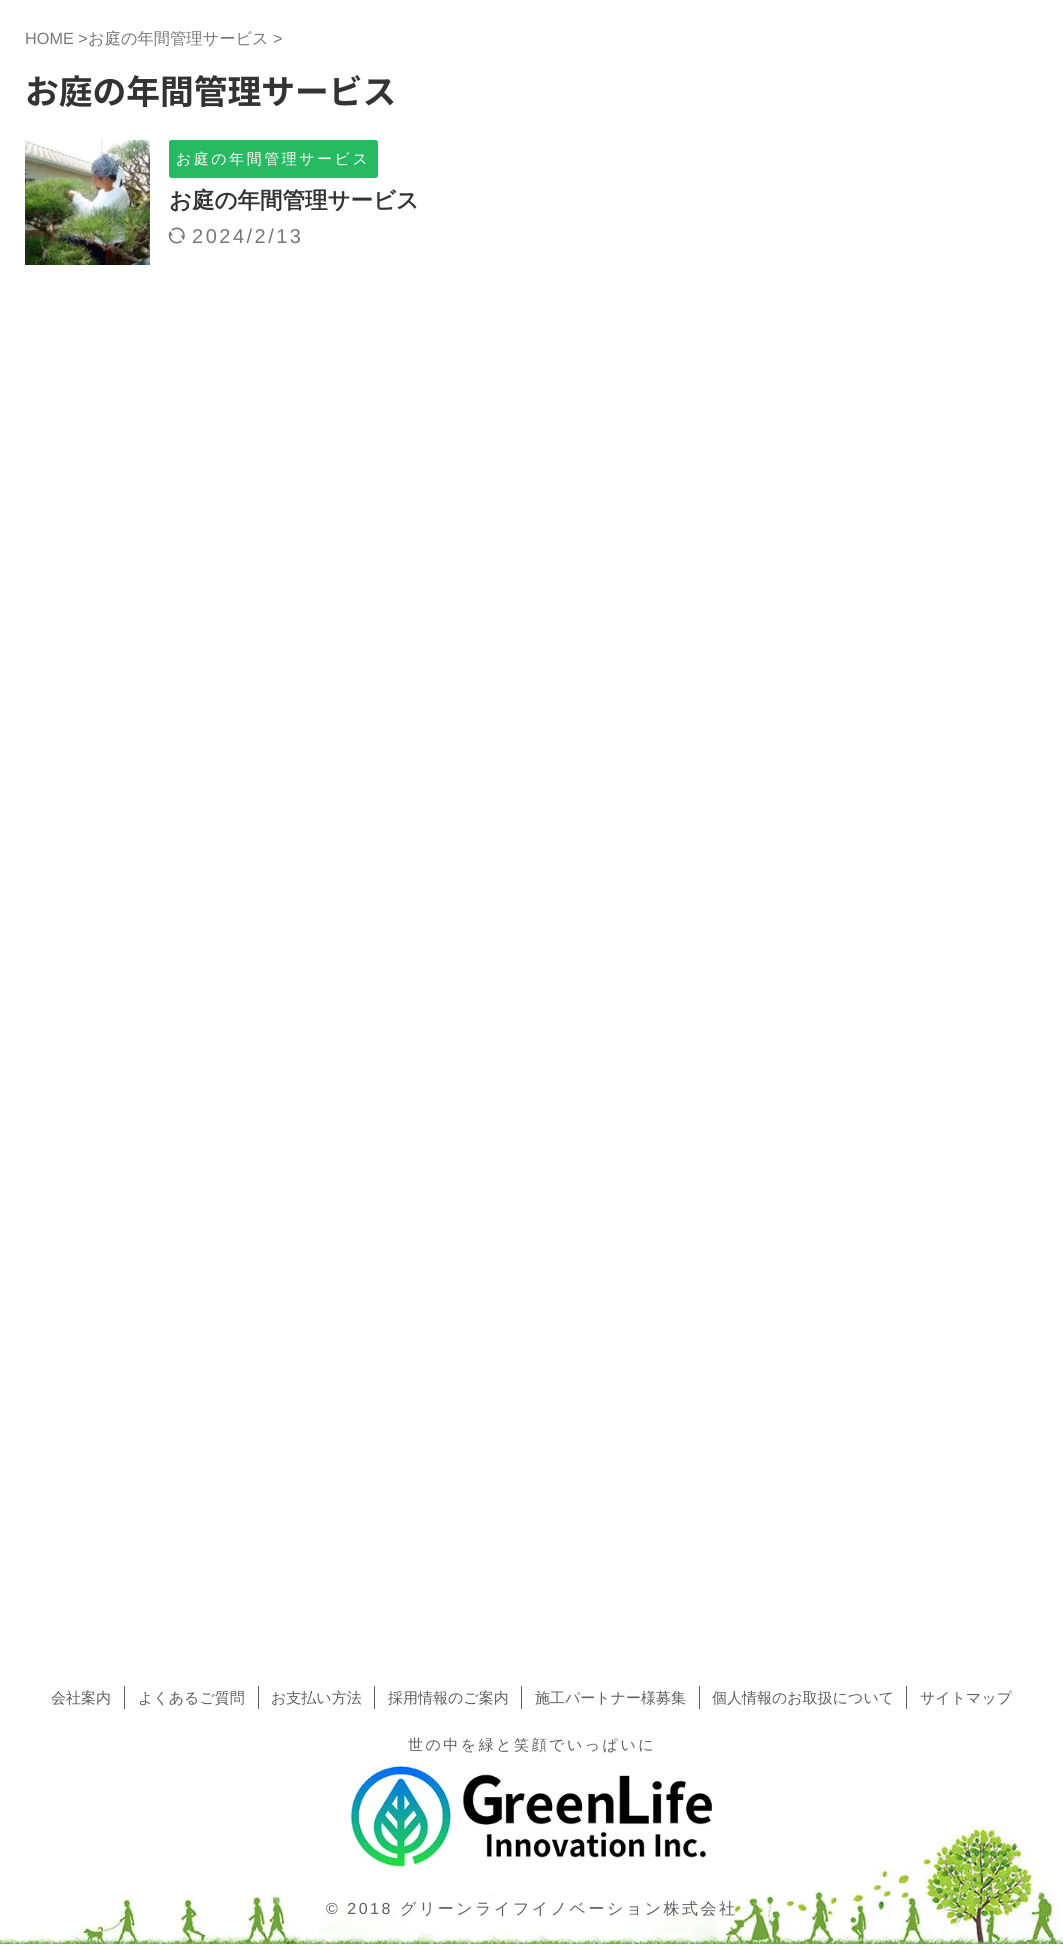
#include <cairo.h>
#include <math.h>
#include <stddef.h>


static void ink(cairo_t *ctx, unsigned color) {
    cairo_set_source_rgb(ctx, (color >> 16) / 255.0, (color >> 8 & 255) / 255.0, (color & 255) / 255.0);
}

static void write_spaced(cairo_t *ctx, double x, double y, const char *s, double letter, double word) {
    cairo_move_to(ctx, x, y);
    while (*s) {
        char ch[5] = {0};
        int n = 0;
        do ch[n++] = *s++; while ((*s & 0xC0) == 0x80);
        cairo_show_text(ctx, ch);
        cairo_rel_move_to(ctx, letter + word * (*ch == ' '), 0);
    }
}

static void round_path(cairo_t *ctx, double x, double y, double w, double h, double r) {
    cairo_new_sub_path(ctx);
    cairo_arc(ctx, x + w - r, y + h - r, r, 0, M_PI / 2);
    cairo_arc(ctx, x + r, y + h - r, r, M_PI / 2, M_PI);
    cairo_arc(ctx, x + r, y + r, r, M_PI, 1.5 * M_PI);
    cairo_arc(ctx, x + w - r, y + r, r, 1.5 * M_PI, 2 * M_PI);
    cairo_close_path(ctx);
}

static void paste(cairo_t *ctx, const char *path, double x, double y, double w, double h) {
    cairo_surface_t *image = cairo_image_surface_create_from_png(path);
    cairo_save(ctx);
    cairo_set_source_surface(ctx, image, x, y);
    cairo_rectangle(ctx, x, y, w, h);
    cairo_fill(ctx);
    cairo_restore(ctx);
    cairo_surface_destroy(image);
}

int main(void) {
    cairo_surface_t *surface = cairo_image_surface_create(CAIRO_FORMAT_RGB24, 1063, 1945);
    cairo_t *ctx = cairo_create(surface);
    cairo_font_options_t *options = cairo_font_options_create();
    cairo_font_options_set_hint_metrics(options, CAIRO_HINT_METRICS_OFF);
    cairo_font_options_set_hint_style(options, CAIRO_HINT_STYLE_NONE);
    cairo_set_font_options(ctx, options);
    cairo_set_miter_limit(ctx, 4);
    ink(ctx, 0xFFFFFF);
    cairo_paint(ctx);
    cairo_select_font_face(ctx, "Liberation Sans", CAIRO_FONT_SLANT_NORMAL, CAIRO_FONT_WEIGHT_NORMAL);
    cairo_set_font_size(ctx, 16.25);
    ink(ctx, 0x777777);
    cairo_move_to(ctx, 25, 44);
    cairo_show_text(ctx, "HOME >");
    cairo_select_font_face(ctx, "WenQuanYi Zen Hei Medium", CAIRO_FONT_SLANT_NORMAL, CAIRO_FONT_WEIGHT_NORMAL);
    cairo_move_to(ctx, 88, 44);
    cairo_show_text(ctx, "お庭の年間管理サービス");
    cairo_select_font_face(ctx, "Liberation Sans", CAIRO_FONT_SLANT_NORMAL, CAIRO_FONT_WEIGHT_NORMAL);
    cairo_move_to(ctx, 273, 44);
    cairo_show_text(ctx, ">");
    cairo_select_font_face(ctx, "Noto Sans JP", CAIRO_FONT_SLANT_NORMAL, CAIRO_FONT_WEIGHT_BOLD);
    cairo_set_font_size(ctx, 33.75);
    ink(ctx, 0x333333);
    cairo_move_to(ctx, 25, 104);
    cairo_show_text(ctx, "お庭の年間管理サービス");
    paste(ctx, "media/1.png", 25, 140, 125, 125);
    ink(ctx, 0x28BA62);
    round_path(ctx, 169, 140, 209, 38, 2.5);
    cairo_fill(ctx);
    cairo_select_font_face(ctx, "WenQuanYi Zen Hei Medium", CAIRO_FONT_SLANT_NORMAL, CAIRO_FONT_WEIGHT_NORMAL);
    cairo_set_font_size(ctx, 15);
    ink(ctx, 0xFFFFFF);
    write_spaced(ctx, 176, 164, "お庭の年間管理サービス", 2.5, 0);
    cairo_select_font_face(ctx, "WenQuanYi Zen Hei", CAIRO_FONT_SLANT_NORMAL, CAIRO_FONT_WEIGHT_BOLD);
    cairo_set_font_size(ctx, 22.5);
    ink(ctx, 0x333333);
    cairo_move_to(ctx, 169, 208);
    cairo_show_text(ctx, "お庭の年間管理サービス");
    paste(ctx, "media/2.png", 168, 227, 17, 17);
    cairo_select_font_face(ctx, "Liberation Sans", CAIRO_FONT_SLANT_NORMAL, CAIRO_FONT_WEIGHT_NORMAL);
    cairo_set_font_size(ctx, 20);
    ink(ctx, 0x777777);
    write_spaced(ctx, 192, 243, "2024/2/13", 2.5, 0);
    paste(ctx, "media/3.png", 0, 1826, 1063, 118);
    ink(ctx, 0x5E5E5E);
    cairo_rectangle(ctx, 124, 1686, 1, 23);
    cairo_fill(ctx);
    cairo_select_font_face(ctx, "WenQuanYi Zen Hei Medium", CAIRO_FONT_SLANT_NORMAL, CAIRO_FONT_WEIGHT_NORMAL);
    cairo_set_font_size(ctx, 15);
    cairo_move_to(ctx, 51, 1703);
    cairo_show_text(ctx, "会社案内");
    cairo_rectangle(ctx, 258, 1686, 1, 23);
    cairo_fill(ctx);
    cairo_move_to(ctx, 138, 1703);
    cairo_show_text(ctx, "よくあるご質問");
    cairo_rectangle(ctx, 374, 1686, 1, 23);
    cairo_fill(ctx);
    cairo_move_to(ctx, 271, 1703);
    cairo_show_text(ctx, "お支払い方法");
    cairo_rectangle(ctx, 521, 1686, 1, 23);
    cairo_fill(ctx);
    cairo_move_to(ctx, 388, 1703);
    cairo_show_text(ctx, "採用情報のご案内");
    cairo_rectangle(ctx, 699, 1686, 1, 23);
    cairo_fill(ctx);
    cairo_move_to(ctx, 535, 1703);
    cairo_show_text(ctx, "施工パートナー様募集");
    cairo_rectangle(ctx, 906, 1686, 1, 23);
    cairo_fill(ctx);
    cairo_move_to(ctx, 712, 1703);
    cairo_show_text(ctx, "個人情報のお取扱について");
    cairo_move_to(ctx, 920, 1703);
    cairo_show_text(ctx, "サイトマップ");
    write_spaced(ctx, 408, 1750, "世の中を緑と笑顔でいっぱいに", 2.5, 0);
    paste(ctx, "media/4.png", 350, 1762, 364, 108);
    cairo_select_font_face(ctx, "Liberation Sans", CAIRO_FONT_SLANT_NORMAL, CAIRO_FONT_WEIGHT_NORMAL);
    cairo_set_font_size(ctx, 16);
    write_spaced(ctx, 326, 1914, "© 2018", 2.5, 0);
    cairo_select_font_face(ctx, "WenQuanYi Zen Hei Medium", CAIRO_FONT_SLANT_NORMAL, CAIRO_FONT_WEIGHT_NORMAL);
    write_spaced(ctx, 400, 1914, "グリーンライフイノベーション株式会社", 2.5, 0);
    cairo_surface_write_to_png(surface, "image.png");
    cairo_font_options_destroy(options);
    cairo_destroy(ctx);
    cairo_surface_destroy(surface);
    return 0;
}
